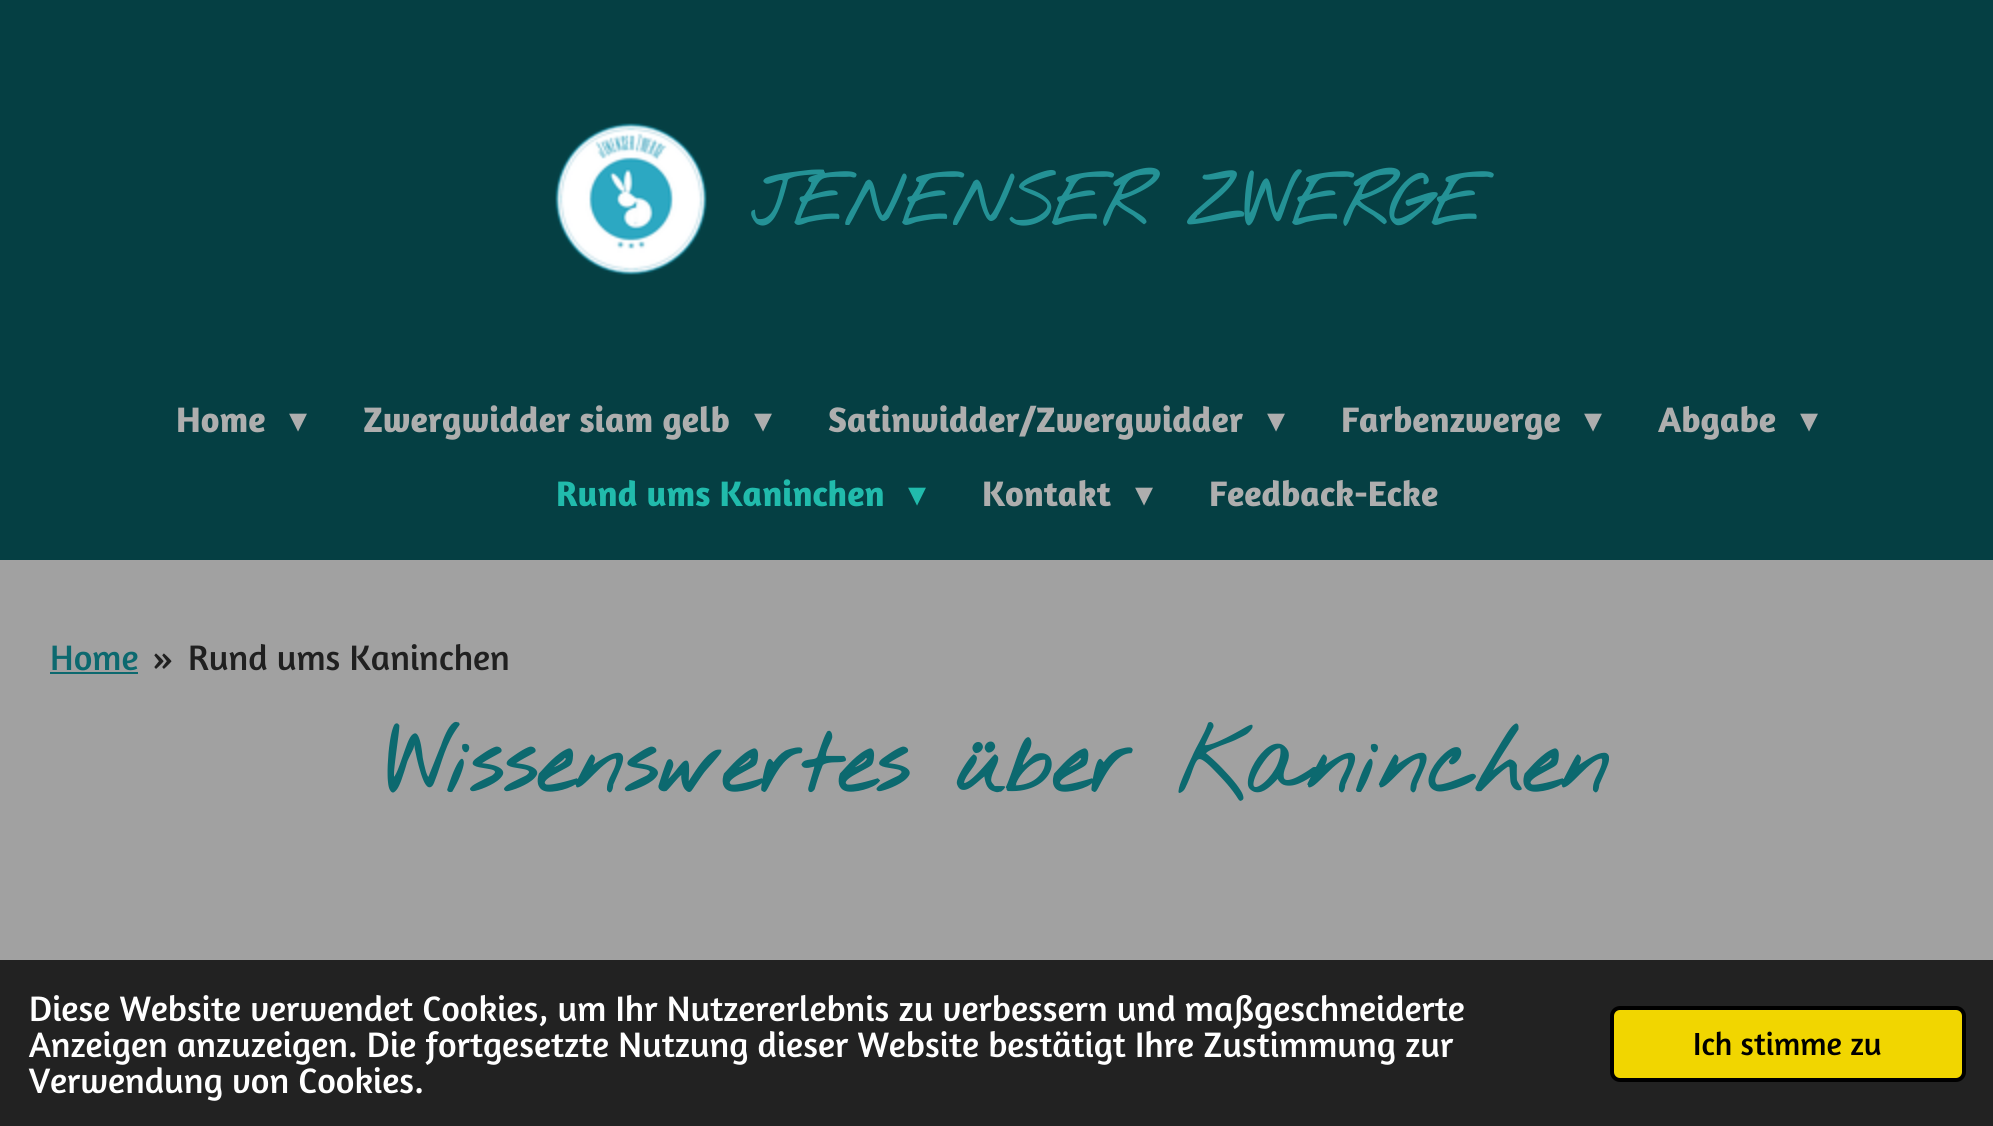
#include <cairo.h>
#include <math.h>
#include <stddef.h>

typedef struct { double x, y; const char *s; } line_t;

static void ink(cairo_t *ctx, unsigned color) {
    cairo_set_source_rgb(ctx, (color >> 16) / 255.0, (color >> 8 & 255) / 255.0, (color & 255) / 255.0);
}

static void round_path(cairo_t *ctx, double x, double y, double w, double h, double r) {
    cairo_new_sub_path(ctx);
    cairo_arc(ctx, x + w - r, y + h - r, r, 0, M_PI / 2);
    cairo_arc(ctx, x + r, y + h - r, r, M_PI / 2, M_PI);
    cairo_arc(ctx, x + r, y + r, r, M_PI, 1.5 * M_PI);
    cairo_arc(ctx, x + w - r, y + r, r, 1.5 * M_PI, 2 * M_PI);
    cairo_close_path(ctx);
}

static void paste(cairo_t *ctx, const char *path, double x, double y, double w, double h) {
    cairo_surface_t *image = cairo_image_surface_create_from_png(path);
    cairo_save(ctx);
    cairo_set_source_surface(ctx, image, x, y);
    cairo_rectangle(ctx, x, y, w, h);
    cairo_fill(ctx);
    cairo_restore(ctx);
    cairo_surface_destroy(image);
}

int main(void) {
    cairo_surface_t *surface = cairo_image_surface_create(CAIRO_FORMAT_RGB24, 1993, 1126);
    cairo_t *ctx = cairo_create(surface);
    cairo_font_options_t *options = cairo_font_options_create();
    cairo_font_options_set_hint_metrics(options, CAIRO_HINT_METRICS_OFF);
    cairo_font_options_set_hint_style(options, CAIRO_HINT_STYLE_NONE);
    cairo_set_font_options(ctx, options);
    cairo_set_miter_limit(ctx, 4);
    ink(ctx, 0xA1A1A1);
    cairo_paint(ctx);
    ink(ctx, 0x053F43);
    cairo_rectangle(ctx, 0, 0, 1993, 560);
    cairo_fill(ctx);
    paste(ctx, "media/1.png", 555, 123, 152, 152);
    cairo_select_font_face(ctx, "Nothing You Could Do", CAIRO_FONT_SLANT_NORMAL, CAIRO_FONT_WEIGHT_BOLD);
    cairo_set_font_size(ctx, 70);
    ink(ctx, 0x249296);
    cairo_move_to(ctx, 751, 225);
    cairo_show_text(ctx, "JENENSER ZWERGE");
    cairo_select_font_face(ctx, "Amaranth", CAIRO_FONT_SLANT_NORMAL, CAIRO_FONT_WEIGHT_BOLD);
    cairo_set_font_size(ctx, 36);
    ink(ctx, 0xAEAEAE);
    cairo_move_to(ctx, 176, 432);
    cairo_show_text(ctx, "Home");
    cairo_select_font_face(ctx, "DejaVu Sans", CAIRO_FONT_SLANT_NORMAL, CAIRO_FONT_WEIGHT_NORMAL);
    cairo_move_to(ctx, 289, 432);
    cairo_show_text(ctx, "▾");
    cairo_select_font_face(ctx, "Amaranth", CAIRO_FONT_SLANT_NORMAL, CAIRO_FONT_WEIGHT_BOLD);
    cairo_move_to(ctx, 363, 432);
    cairo_show_text(ctx, "Zwergwidder siam gelb");
    cairo_select_font_face(ctx, "DejaVu Sans", CAIRO_FONT_SLANT_NORMAL, CAIRO_FONT_WEIGHT_NORMAL);
    cairo_move_to(ctx, 754, 432);
    cairo_show_text(ctx, "▾");
    cairo_select_font_face(ctx, "Amaranth", CAIRO_FONT_SLANT_NORMAL, CAIRO_FONT_WEIGHT_BOLD);
    cairo_move_to(ctx, 828, 432);
    cairo_show_text(ctx, "Satinwidder/Zwergwidder");
    cairo_select_font_face(ctx, "DejaVu Sans", CAIRO_FONT_SLANT_NORMAL, CAIRO_FONT_WEIGHT_NORMAL);
    cairo_move_to(ctx, 1267, 432);
    cairo_show_text(ctx, "▾");
    cairo_select_font_face(ctx, "Amaranth", CAIRO_FONT_SLANT_NORMAL, CAIRO_FONT_WEIGHT_BOLD);
    cairo_move_to(ctx, 1341, 432);
    cairo_show_text(ctx, "Farbenzwerge");
    cairo_select_font_face(ctx, "DejaVu Sans", CAIRO_FONT_SLANT_NORMAL, CAIRO_FONT_WEIGHT_NORMAL);
    cairo_move_to(ctx, 1584, 432);
    cairo_show_text(ctx, "▾");
    cairo_select_font_face(ctx, "Amaranth", CAIRO_FONT_SLANT_NORMAL, CAIRO_FONT_WEIGHT_BOLD);
    cairo_move_to(ctx, 1658, 432);
    cairo_show_text(ctx, "Abgabe");
    cairo_select_font_face(ctx, "DejaVu Sans", CAIRO_FONT_SLANT_NORMAL, CAIRO_FONT_WEIGHT_NORMAL);
    cairo_move_to(ctx, 1800, 432);
    cairo_show_text(ctx, "▾");
    cairo_select_font_face(ctx, "Amaranth", CAIRO_FONT_SLANT_NORMAL, CAIRO_FONT_WEIGHT_BOLD);
    ink(ctx, 0x21BBAC);
    cairo_move_to(ctx, 556, 506);
    cairo_show_text(ctx, "Rund ums Kaninchen");
    cairo_select_font_face(ctx, "DejaVu Sans", CAIRO_FONT_SLANT_NORMAL, CAIRO_FONT_WEIGHT_NORMAL);
    cairo_move_to(ctx, 908, 506);
    cairo_show_text(ctx, "▾");
    cairo_select_font_face(ctx, "Amaranth", CAIRO_FONT_SLANT_NORMAL, CAIRO_FONT_WEIGHT_BOLD);
    ink(ctx, 0xAEAEAE);
    cairo_move_to(ctx, 982, 506);
    cairo_show_text(ctx, "Kontakt");
    cairo_select_font_face(ctx, "DejaVu Sans", CAIRO_FONT_SLANT_NORMAL, CAIRO_FONT_WEIGHT_NORMAL);
    cairo_move_to(ctx, 1135, 506);
    cairo_show_text(ctx, "▾");
    cairo_select_font_face(ctx, "Amaranth", CAIRO_FONT_SLANT_NORMAL, CAIRO_FONT_WEIGHT_BOLD);
    cairo_move_to(ctx, 1209, 506);
    cairo_show_text(ctx, "Feedback-Ecke");
    cairo_select_font_face(ctx, "Amaranth", CAIRO_FONT_SLANT_NORMAL, CAIRO_FONT_WEIGHT_NORMAL);
    ink(ctx, 0x0C696F);
    cairo_move_to(ctx, 50, 670);
    cairo_show_text(ctx, "Home");
    cairo_rectangle(ctx, 50, 672, 88, 2);
    cairo_fill(ctx);
    ink(ctx, 0x202020);
    cairo_move_to(ctx, 153, 670);
    cairo_show_text(ctx, "»");
    cairo_move_to(ctx, 188, 670);
    cairo_show_text(ctx, "Rund ums Kaninchen");
    cairo_select_font_face(ctx, "Nothing You Could Do", CAIRO_FONT_SLANT_NORMAL, CAIRO_FONT_WEIGHT_BOLD);
    cairo_set_font_size(ctx, 88);
    ink(ctx, 0x0C696F);
    cairo_move_to(ctx, 386, 792);
    cairo_show_text(ctx, "Wissenswertes über Kaninchen");
    ink(ctx, 0x222222);
    cairo_rectangle(ctx, 0, 960, 1993, 166);
    cairo_fill(ctx);
    cairo_select_font_face(ctx, "Amaranth", CAIRO_FONT_SLANT_NORMAL, CAIRO_FONT_WEIGHT_NORMAL);
    cairo_set_font_size(ctx, 36);
    ink(ctx, 0xFFFFFF);
    {
        static const line_t items[] = {
            {29, 1021, "Diese Website verwendet Cookies, um Ihr Nutzererlebnis zu verbessern und maßgeschneiderte"},
            {29, 1057, "Anzeigen anzuzeigen. Die fortgesetzte Nutzung dieser Website bestätigt Ihre Zustimmung zur"},
            {29, 1093, "Verwendung von Cookies."},
        };
        for (size_t i = 0; i < sizeof items / sizeof *items; i++) {
            cairo_move_to(ctx, items[i].x, items[i].y);
            cairo_show_text(ctx, items[i].s);
        }
    }
    ink(ctx, 0xF1D600);
    round_path(ctx, 1612, 1008, 352, 72, 8);
    cairo_fill_preserve(ctx);
    ink(ctx, 0x000000);
    cairo_set_line_width(ctx, 4);
    cairo_stroke(ctx);
    cairo_set_font_size(ctx, 32.5);
    cairo_move_to(ctx, 1693, 1055);
    cairo_show_text(ctx, "Ich stimme zu");
    cairo_surface_write_to_png(surface, "image.png");
    cairo_font_options_destroy(options);
    cairo_destroy(ctx);
    cairo_surface_destroy(surface);
    return 0;
}
